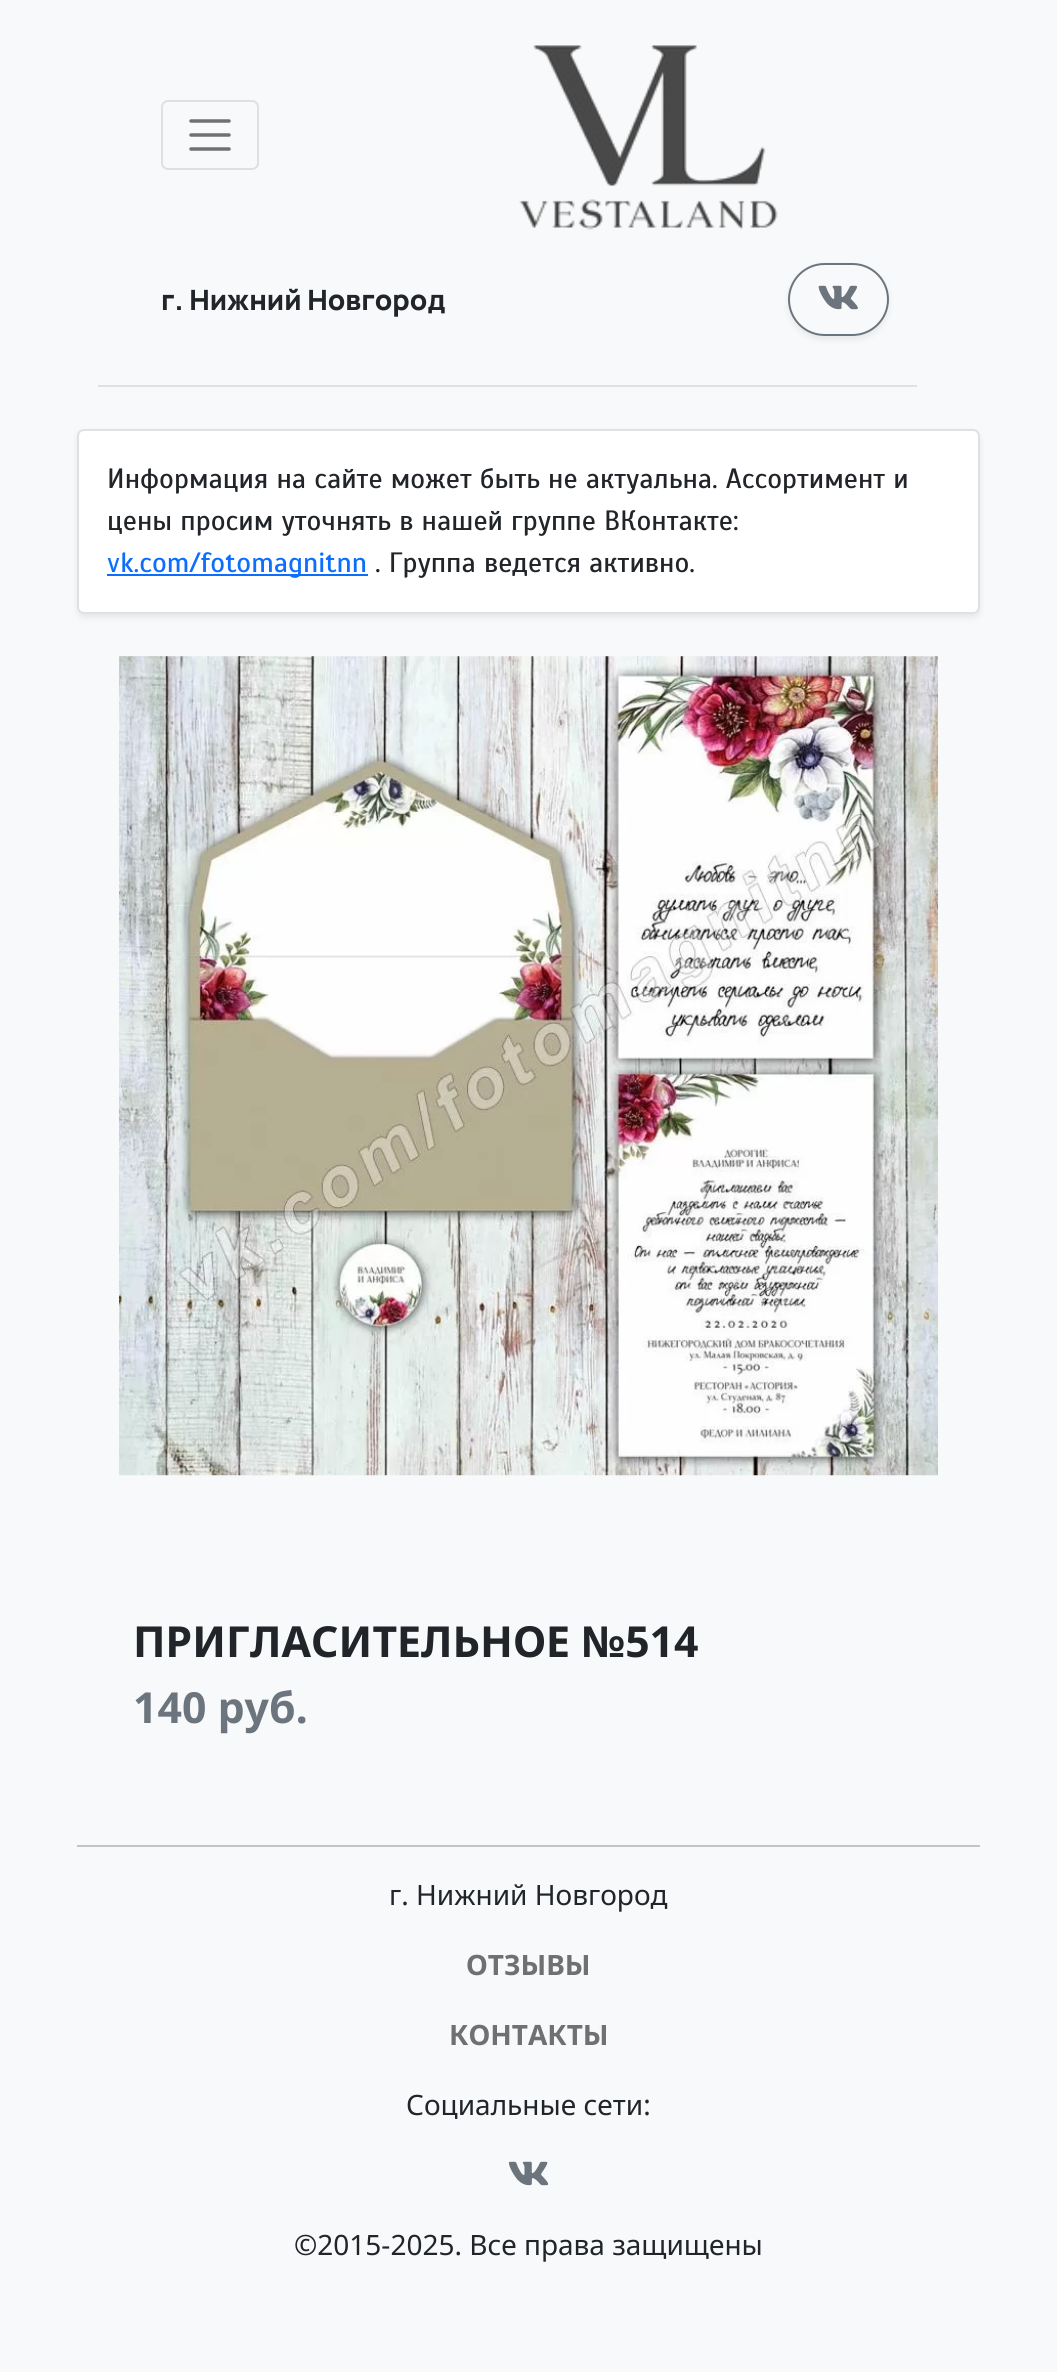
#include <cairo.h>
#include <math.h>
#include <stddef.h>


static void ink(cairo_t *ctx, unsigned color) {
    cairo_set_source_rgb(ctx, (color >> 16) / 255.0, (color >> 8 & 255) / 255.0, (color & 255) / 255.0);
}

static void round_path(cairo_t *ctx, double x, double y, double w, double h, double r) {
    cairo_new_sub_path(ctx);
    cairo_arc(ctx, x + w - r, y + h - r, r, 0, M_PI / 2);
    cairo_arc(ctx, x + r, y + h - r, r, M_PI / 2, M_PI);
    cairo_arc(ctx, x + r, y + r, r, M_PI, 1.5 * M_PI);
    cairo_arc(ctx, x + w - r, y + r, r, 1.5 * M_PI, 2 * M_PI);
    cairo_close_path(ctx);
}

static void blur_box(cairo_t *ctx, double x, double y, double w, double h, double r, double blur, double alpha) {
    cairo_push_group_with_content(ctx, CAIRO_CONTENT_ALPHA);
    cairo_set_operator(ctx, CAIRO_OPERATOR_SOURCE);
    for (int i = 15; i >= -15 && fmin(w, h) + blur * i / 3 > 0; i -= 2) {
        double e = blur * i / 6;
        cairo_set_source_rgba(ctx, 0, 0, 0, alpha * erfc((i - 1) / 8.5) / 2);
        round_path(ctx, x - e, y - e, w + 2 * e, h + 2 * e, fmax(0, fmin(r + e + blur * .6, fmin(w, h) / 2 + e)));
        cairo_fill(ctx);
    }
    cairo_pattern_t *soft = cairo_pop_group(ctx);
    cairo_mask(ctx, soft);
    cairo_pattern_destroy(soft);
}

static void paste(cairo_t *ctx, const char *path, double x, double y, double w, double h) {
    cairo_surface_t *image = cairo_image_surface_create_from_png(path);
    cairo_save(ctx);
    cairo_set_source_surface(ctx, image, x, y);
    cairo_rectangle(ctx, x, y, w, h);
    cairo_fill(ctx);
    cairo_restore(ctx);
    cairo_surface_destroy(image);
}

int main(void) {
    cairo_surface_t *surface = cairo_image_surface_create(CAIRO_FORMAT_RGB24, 1057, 2372);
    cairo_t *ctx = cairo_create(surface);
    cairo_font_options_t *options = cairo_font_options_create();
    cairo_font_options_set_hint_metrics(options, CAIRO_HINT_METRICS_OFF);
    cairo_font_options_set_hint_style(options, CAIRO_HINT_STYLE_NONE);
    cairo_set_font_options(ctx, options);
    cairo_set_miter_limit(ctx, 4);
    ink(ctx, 0xF8F9FA);
    cairo_paint(ctx);
    round_path(ctx, 162, 101, 96, 68, 6);
    ink(ctx, 0xDFE0E1);
    cairo_stroke(ctx);
    cairo_new_path(ctx);
    cairo_move_to(ctx, 191, 121);
    cairo_line_to(ctx, 229, 121);
    cairo_move_to(ctx, 191, 135);
    cairo_line_to(ctx, 229, 135);
    cairo_move_to(ctx, 191, 149);
    cairo_line_to(ctx, 229, 149);
    ink(ctx, 0x707071);
    cairo_set_line_width(ctx, 3.5);
    cairo_set_line_cap(ctx, CAIRO_LINE_CAP_ROUND);
    cairo_stroke(ctx);
    paste(ctx, "media/1.png", 519, 45, 259, 185);
    cairo_select_font_face(ctx, "Manrope ExtraLight", CAIRO_FONT_SLANT_NORMAL, CAIRO_FONT_WEIGHT_NORMAL);
    cairo_set_font_size(ctx, 28);
    ink(ctx, 0x212529);
    cairo_move_to(ctx, 161, 310);
    cairo_show_text(ctx, "г. Нижний Новгород");
    cairo_save(ctx);
    cairo_set_fill_rule(ctx, CAIRO_FILL_RULE_EVEN_ODD);
    cairo_new_path(ctx);
    cairo_move_to(ctx, 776, 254);
    cairo_line_to(ctx, 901, 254);
    cairo_line_to(ctx, 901, 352);
    cairo_line_to(ctx, 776, 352);
    cairo_close_path(ctx);
    cairo_move_to(ctx, 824.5, 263);
    cairo_line_to(ctx, 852.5, 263);
    cairo_curve_to(ctx, 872.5, 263, 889, 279.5, 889, 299.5);
    cairo_curve_to(ctx, 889, 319.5, 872.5, 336, 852.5, 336);
    cairo_line_to(ctx, 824.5, 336);
    cairo_curve_to(ctx, 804.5, 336, 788, 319.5, 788, 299.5);
    cairo_curve_to(ctx, 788, 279.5, 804.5, 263, 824.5, 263);
    cairo_close_path(ctx);
    cairo_clip(ctx);
    ink(ctx, 0x000000);
    blur_box(ctx, 788, 266, 101, 74, 37, 3.5, 0.07);
    cairo_restore(ctx);
    round_path(ctx, 789, 264, 99, 71, 35.5);
    ink(ctx, 0x6C757D);
    cairo_set_line_width(ctx, 2);
    cairo_set_line_cap(ctx, CAIRO_LINE_CAP_BUTT);
    cairo_stroke(ctx);
    paste(ctx, "media/2.png", 818, 285, 40, 25);
    ink(ctx, 0xDEE2E6);
    cairo_rectangle(ctx, 98, 385, 819, 2);
    cairo_fill(ctx);
    ink(ctx, 0x000000);
    blur_box(ctx, 77, 432, 903, 186, 7, 3.5, 0.07);
    ink(ctx, 0xFFFFFF);
    round_path(ctx, 77, 429, 903, 185, 7);
    cairo_fill(ctx);
    round_path(ctx, 78, 430, 901, 183, 6);
    cairo_set_source_rgba(ctx, 0, 0, 0, 0.12);
    cairo_stroke(ctx);
    cairo_select_font_face(ctx, "Scada", CAIRO_FONT_SLANT_NORMAL, CAIRO_FONT_WEIGHT_NORMAL);
    ink(ctx, 0x212529);
    cairo_move_to(ctx, 107, 488);
    cairo_show_text(ctx, "Информация на сайте может быть не актуальна. Ассортимент и");
    cairo_move_to(ctx, 107, 530);
    cairo_show_text(ctx, "цены просим уточнять в нашей группе ВКонтакте:");
    ink(ctx, 0x0D6EFD);
    cairo_rectangle(ctx, 107, 574, 261, 2);
    cairo_fill(ctx);
    cairo_move_to(ctx, 107, 572);
    cairo_show_text(ctx, "vk.com/fotomagnitnn");
    ink(ctx, 0x212529);
    cairo_move_to(ctx, 375, 572);
    cairo_show_text(ctx, ". Группа ведется активно.");
    paste(ctx, "media/3.png", 119, 656, 819, 820);
    cairo_select_font_face(ctx, "Noto Sans", CAIRO_FONT_SLANT_NORMAL, CAIRO_FONT_WEIGHT_BOLD);
    cairo_set_font_size(ctx, 42.75);
    cairo_move_to(ctx, 133, 1657);
    cairo_show_text(ctx, "ПРИГЛАСИТЕЛЬНОЕ №514");
    ink(ctx, 0x6C757D);
    cairo_move_to(ctx, 133, 1723);
    cairo_show_text(ctx, "140 руб.");
    ink(ctx, 0xC2C4C6);
    cairo_rectangle(ctx, 77, 1845, 903, 2);
    cairo_fill(ctx);
    cairo_select_font_face(ctx, "Noto Sans", CAIRO_FONT_SLANT_NORMAL, CAIRO_FONT_WEIGHT_NORMAL);
    cairo_set_font_size(ctx, 28);
    ink(ctx, 0x212529);
    cairo_move_to(ctx, 389, 1905);
    cairo_show_text(ctx, "г. Нижний Новгород");
    cairo_select_font_face(ctx, "Noto Sans", CAIRO_FONT_SLANT_NORMAL, CAIRO_FONT_WEIGHT_BOLD);
    ink(ctx, 0x707071);
    cairo_move_to(ctx, 466, 1975);
    cairo_show_text(ctx, "ОТЗЫВЫ");
    cairo_move_to(ctx, 449, 2045);
    cairo_show_text(ctx, "КОНТАКТЫ");
    cairo_select_font_face(ctx, "Noto Sans", CAIRO_FONT_SLANT_NORMAL, CAIRO_FONT_WEIGHT_NORMAL);
    ink(ctx, 0x212529);
    cairo_move_to(ctx, 406, 2115);
    cairo_show_text(ctx, "Социальные сети:");
    paste(ctx, "media/4.png", 508, 2161, 41, 25);
    cairo_move_to(ctx, 294, 2255);
    cairo_show_text(ctx, "©2015-2025. Все права защищены");
    cairo_surface_write_to_png(surface, "image.png");
    cairo_font_options_destroy(options);
    cairo_destroy(ctx);
    cairo_surface_destroy(surface);
    return 0;
}
